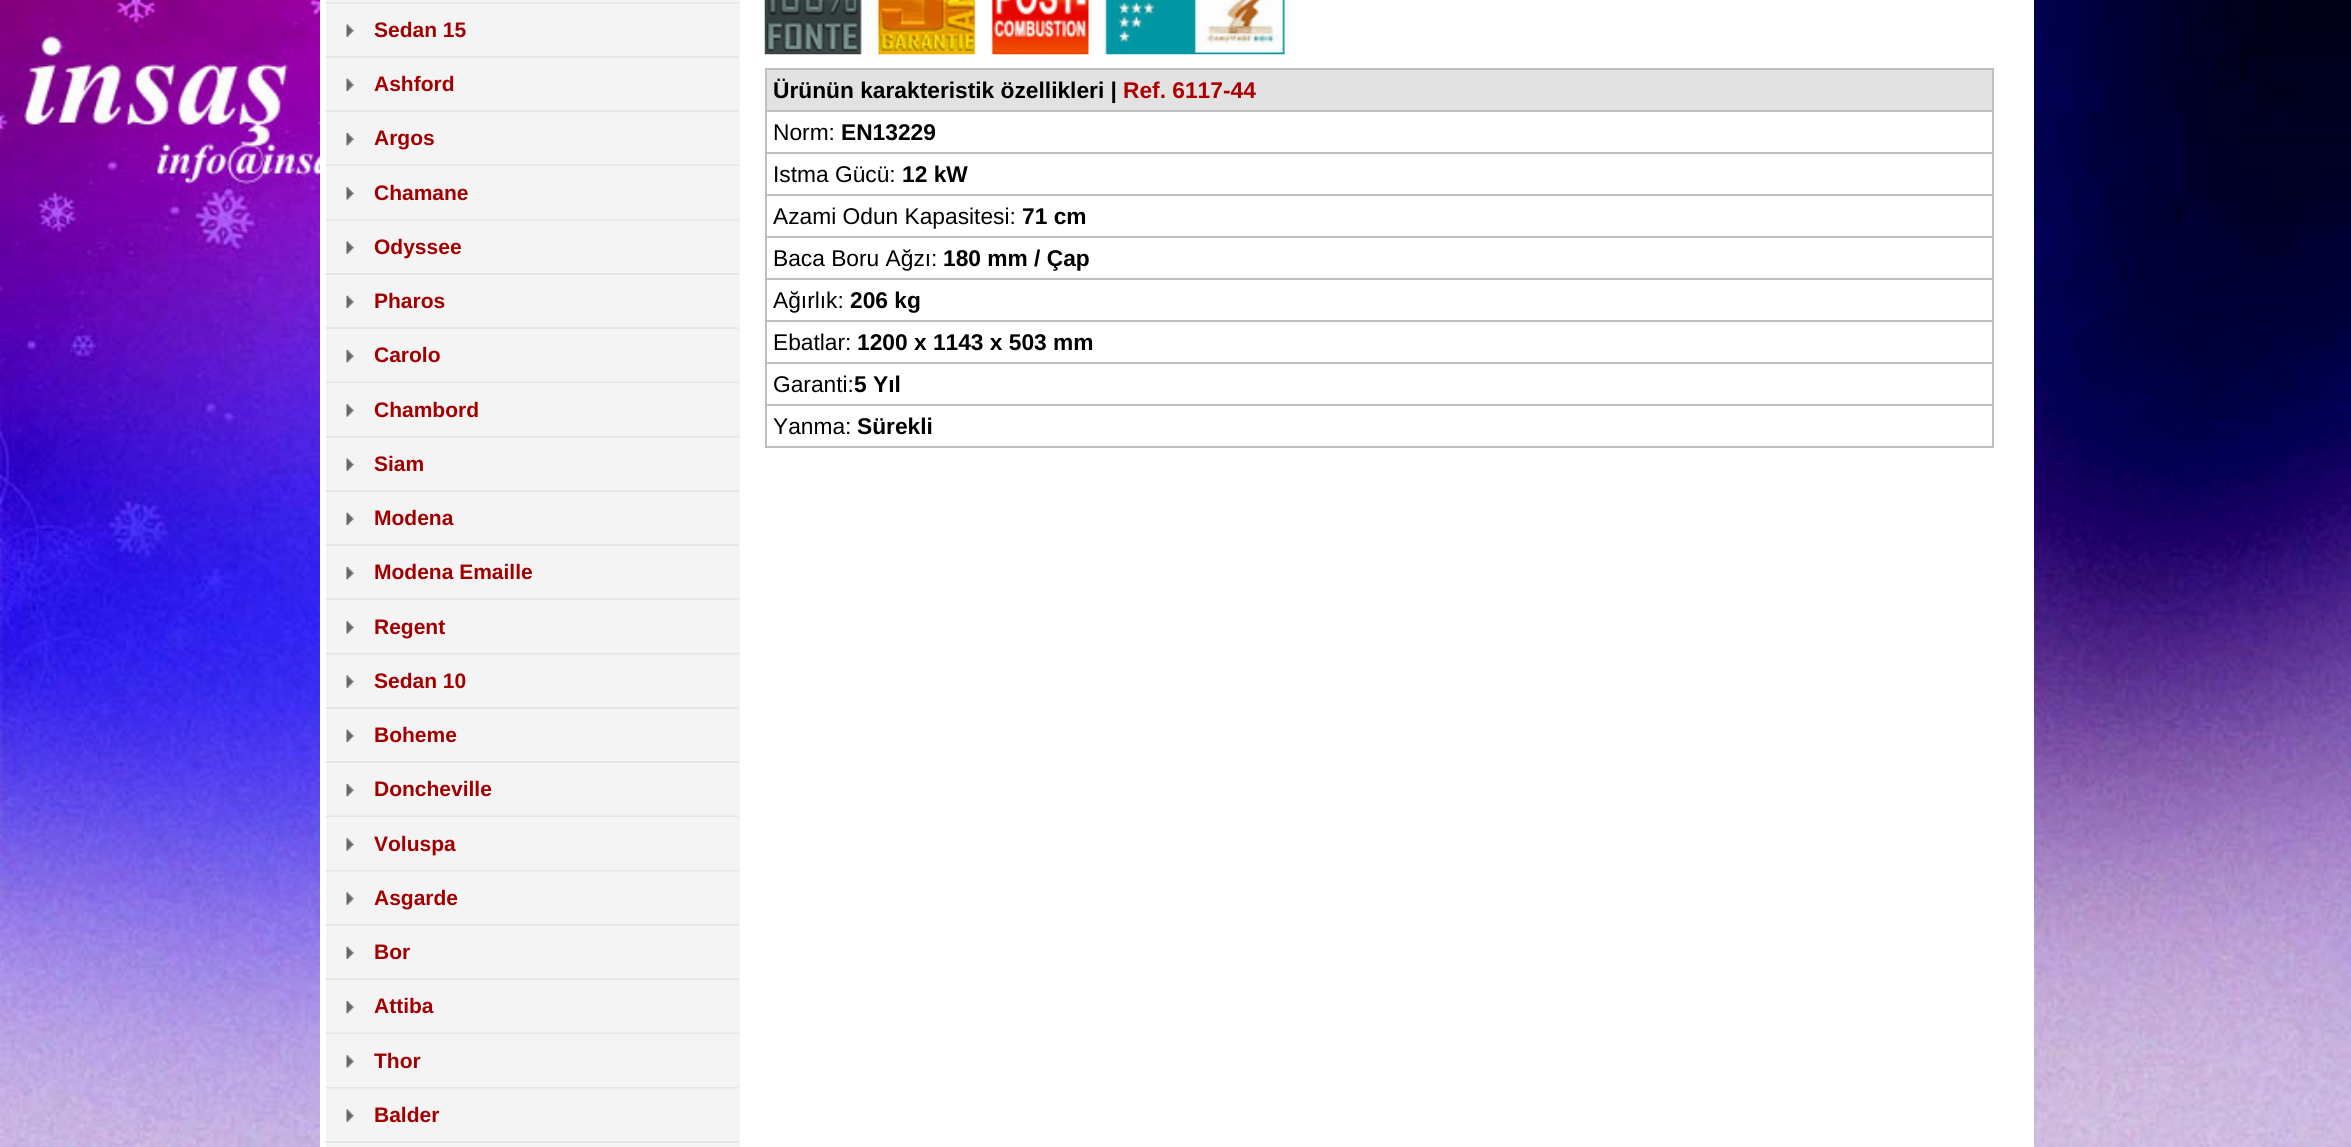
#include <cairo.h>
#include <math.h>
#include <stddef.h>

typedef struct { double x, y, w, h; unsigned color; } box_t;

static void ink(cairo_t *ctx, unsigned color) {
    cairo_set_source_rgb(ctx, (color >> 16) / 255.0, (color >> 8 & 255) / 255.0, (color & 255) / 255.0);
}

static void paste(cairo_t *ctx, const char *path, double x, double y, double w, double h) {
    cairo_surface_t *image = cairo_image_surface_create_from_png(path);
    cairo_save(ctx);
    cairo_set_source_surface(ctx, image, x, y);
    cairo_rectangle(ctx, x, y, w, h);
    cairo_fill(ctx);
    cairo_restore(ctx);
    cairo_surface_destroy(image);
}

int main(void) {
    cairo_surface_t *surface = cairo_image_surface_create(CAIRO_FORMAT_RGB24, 2351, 1147);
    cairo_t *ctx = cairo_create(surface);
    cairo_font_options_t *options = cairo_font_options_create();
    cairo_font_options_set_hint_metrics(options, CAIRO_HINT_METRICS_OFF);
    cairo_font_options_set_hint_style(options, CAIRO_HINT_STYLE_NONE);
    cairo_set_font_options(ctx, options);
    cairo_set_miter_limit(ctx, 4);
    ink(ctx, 0xFFFFFF);
    cairo_paint(ctx);
    paste(ctx, "media/1.png", 0, 0, 2351, 1147);
    ink(ctx, 0xFFFFFF);
    cairo_rectangle(ctx, 320, 0, 1714, 1147);
    cairo_fill(ctx);
    ink(ctx, 0xF4F4F4);
    cairo_rectangle(ctx, 326, 0, 414, 1147);
    cairo_fill(ctx);
    paste(ctx, "media/2.png", 325, 2, 414, 2);
    paste(ctx, "media/3.png", 346, 24, 8, 13);
    cairo_select_font_face(ctx, "Liberation Sans", CAIRO_FONT_SLANT_NORMAL, CAIRO_FONT_WEIGHT_BOLD);
    cairo_set_font_size(ctx, 21);
    ink(ctx, 0xA20000);
    cairo_move_to(ctx, 374, 37);
    cairo_show_text(ctx, "Sedan 15");
    paste(ctx, "media/4.png", 325, 56, 414, 2);
    paste(ctx, "media/5.png", 346, 78, 8, 13);
    cairo_move_to(ctx, 374, 91);
    cairo_show_text(ctx, "Ashford");
    paste(ctx, "media/6.png", 325, 110, 414, 2);
    paste(ctx, "media/7.png", 346, 133, 8, 13);
    cairo_move_to(ctx, 374, 145);
    cairo_show_text(ctx, "Argos");
    paste(ctx, "media/8.png", 325, 164, 414, 2);
    paste(ctx, "media/9.png", 346, 187, 8, 13);
    cairo_move_to(ctx, 374, 200);
    cairo_show_text(ctx, "Chamane");
    paste(ctx, "media/2.png", 325, 219, 414, 2);
    paste(ctx, "media/10.png", 346, 241, 8, 13);
    cairo_move_to(ctx, 374, 254);
    cairo_show_text(ctx, "Odyssee");
    paste(ctx, "media/4.png", 325, 273, 414, 2);
    paste(ctx, "media/5.png", 346, 295, 8, 13);
    cairo_move_to(ctx, 374, 308);
    cairo_show_text(ctx, "Pharos");
    paste(ctx, "media/6.png", 325, 327, 414, 2);
    paste(ctx, "media/7.png", 346, 350, 8, 13);
    cairo_move_to(ctx, 374, 362);
    cairo_show_text(ctx, "Carolo");
    paste(ctx, "media/8.png", 325, 381, 414, 2);
    paste(ctx, "media/9.png", 346, 404, 8, 13);
    cairo_move_to(ctx, 374, 417);
    cairo_show_text(ctx, "Chambord");
    paste(ctx, "media/2.png", 325, 436, 414, 2);
    paste(ctx, "media/3.png", 346, 458, 8, 13);
    cairo_move_to(ctx, 374, 471);
    cairo_show_text(ctx, "Siam");
    paste(ctx, "media/4.png", 325, 490, 414, 2);
    paste(ctx, "media/5.png", 346, 512, 8, 13);
    cairo_move_to(ctx, 374, 525);
    cairo_show_text(ctx, "Modena");
    paste(ctx, "media/6.png", 325, 544, 414, 2);
    paste(ctx, "media/7.png", 346, 567, 8, 13);
    cairo_move_to(ctx, 374, 579);
    cairo_show_text(ctx, "Modena Emaille");
    paste(ctx, "media/8.png", 325, 598, 414, 2);
    paste(ctx, "media/9.png", 346, 621, 8, 13);
    cairo_move_to(ctx, 374, 634);
    cairo_show_text(ctx, "Regent");
    paste(ctx, "media/2.png", 325, 653, 414, 2);
    paste(ctx, "media/3.png", 346, 675, 8, 13);
    cairo_move_to(ctx, 374, 688);
    cairo_show_text(ctx, "Sedan 10");
    paste(ctx, "media/4.png", 325, 707, 414, 2);
    paste(ctx, "media/5.png", 346, 729, 8, 13);
    cairo_move_to(ctx, 374, 742);
    cairo_show_text(ctx, "Boheme");
    paste(ctx, "media/6.png", 325, 761, 414, 2);
    paste(ctx, "media/7.png", 346, 784, 8, 13);
    cairo_move_to(ctx, 374, 796);
    cairo_show_text(ctx, "Doncheville");
    paste(ctx, "media/8.png", 325, 815, 414, 2);
    paste(ctx, "media/9.png", 346, 838, 8, 13);
    cairo_move_to(ctx, 374, 851);
    cairo_show_text(ctx, "Voluspa");
    paste(ctx, "media/2.png", 325, 870, 414, 2);
    paste(ctx, "media/3.png", 346, 892, 8, 13);
    cairo_move_to(ctx, 374, 905);
    cairo_show_text(ctx, "Asgarde");
    paste(ctx, "media/4.png", 325, 924, 414, 2);
    paste(ctx, "media/5.png", 346, 946, 8, 13);
    cairo_move_to(ctx, 374, 959);
    cairo_show_text(ctx, "Bor");
    paste(ctx, "media/6.png", 325, 978, 414, 2);
    paste(ctx, "media/7.png", 346, 1001, 8, 13);
    cairo_move_to(ctx, 374, 1013);
    cairo_show_text(ctx, "Attiba");
    paste(ctx, "media/8.png", 325, 1032, 414, 2);
    paste(ctx, "media/9.png", 346, 1055, 8, 13);
    cairo_move_to(ctx, 374, 1068);
    cairo_show_text(ctx, "Thor");
    paste(ctx, "media/2.png", 325, 1087, 414, 2);
    paste(ctx, "media/3.png", 346, 1109, 8, 13);
    cairo_move_to(ctx, 374, 1122);
    cairo_show_text(ctx, "Balder");
    paste(ctx, "media/4.png", 325, 1141, 414, 2);
    paste(ctx, "media/11.png", 764, 0, 521, 55);
    {
        static const box_t items[] = {
            {765, 68, 1228, 2, 0xC0C0C0},
            {1992, 68, 2, 380, 0xC0C0C0},
            {765, 446, 1228, 2, 0xC0C0C0},
            {765, 68, 2, 380, 0xC0C0C0},
            {767, 70, 1225, 40, 0xE2E2E2},
        };
        for (size_t i = 0; i < sizeof items / sizeof *items; i++) {
            ink(ctx, items[i].color);
            cairo_rectangle(ctx, items[i].x, items[i].y, items[i].w, items[i].h);
            cairo_fill(ctx);
        }
    }
    cairo_set_font_size(ctx, 22.75);
    ink(ctx, 0x000000);
    cairo_move_to(ctx, 773, 98);
    cairo_show_text(ctx, "Ürünün karakteristik özellikleri |");
    ink(ctx, 0xAE0000);
    cairo_move_to(ctx, 1123, 98);
    cairo_show_text(ctx, "Ref. 6117-44");
    ink(ctx, 0xC0C0C0);
    cairo_rectangle(ctx, 765, 110, 1228, 2);
    cairo_fill(ctx);
    cairo_select_font_face(ctx, "Liberation Sans", CAIRO_FONT_SLANT_NORMAL, CAIRO_FONT_WEIGHT_NORMAL);
    ink(ctx, 0x000000);
    cairo_move_to(ctx, 773, 140);
    cairo_show_text(ctx, "Norm:");
    cairo_select_font_face(ctx, "Liberation Sans", CAIRO_FONT_SLANT_NORMAL, CAIRO_FONT_WEIGHT_BOLD);
    cairo_move_to(ctx, 841, 140);
    cairo_show_text(ctx, "EN13229");
    ink(ctx, 0xC0C0C0);
    cairo_rectangle(ctx, 765, 152, 1228, 2);
    cairo_fill(ctx);
    cairo_select_font_face(ctx, "Liberation Sans", CAIRO_FONT_SLANT_NORMAL, CAIRO_FONT_WEIGHT_NORMAL);
    ink(ctx, 0x000000);
    cairo_move_to(ctx, 773, 182);
    cairo_show_text(ctx, "Istma Gücü:");
    cairo_select_font_face(ctx, "Liberation Sans", CAIRO_FONT_SLANT_NORMAL, CAIRO_FONT_WEIGHT_BOLD);
    cairo_move_to(ctx, 902, 182);
    cairo_show_text(ctx, "12 kW");
    ink(ctx, 0xC0C0C0);
    cairo_rectangle(ctx, 765, 194, 1228, 2);
    cairo_fill(ctx);
    cairo_select_font_face(ctx, "Liberation Sans", CAIRO_FONT_SLANT_NORMAL, CAIRO_FONT_WEIGHT_NORMAL);
    ink(ctx, 0x000000);
    cairo_move_to(ctx, 773, 224);
    cairo_show_text(ctx, "Azami Odun Kapasitesi:");
    cairo_select_font_face(ctx, "Liberation Sans", CAIRO_FONT_SLANT_NORMAL, CAIRO_FONT_WEIGHT_BOLD);
    cairo_move_to(ctx, 1022, 224);
    cairo_show_text(ctx, "71 cm");
    ink(ctx, 0xC0C0C0);
    cairo_rectangle(ctx, 765, 236, 1228, 2);
    cairo_fill(ctx);
    cairo_select_font_face(ctx, "Liberation Sans", CAIRO_FONT_SLANT_NORMAL, CAIRO_FONT_WEIGHT_NORMAL);
    ink(ctx, 0x000000);
    cairo_move_to(ctx, 773, 266);
    cairo_show_text(ctx, "Baca Boru Ağzı:");
    cairo_select_font_face(ctx, "Liberation Sans", CAIRO_FONT_SLANT_NORMAL, CAIRO_FONT_WEIGHT_BOLD);
    cairo_move_to(ctx, 943, 266);
    cairo_show_text(ctx, "180 mm / Çap");
    ink(ctx, 0xC0C0C0);
    cairo_rectangle(ctx, 765, 278, 1228, 2);
    cairo_fill(ctx);
    cairo_select_font_face(ctx, "Liberation Sans", CAIRO_FONT_SLANT_NORMAL, CAIRO_FONT_WEIGHT_NORMAL);
    ink(ctx, 0x000000);
    cairo_move_to(ctx, 773, 308);
    cairo_show_text(ctx, "Ağırlık:");
    cairo_select_font_face(ctx, "Liberation Sans", CAIRO_FONT_SLANT_NORMAL, CAIRO_FONT_WEIGHT_BOLD);
    cairo_move_to(ctx, 850, 308);
    cairo_show_text(ctx, "206 kg");
    ink(ctx, 0xC0C0C0);
    cairo_rectangle(ctx, 765, 320, 1228, 2);
    cairo_fill(ctx);
    cairo_select_font_face(ctx, "Liberation Sans", CAIRO_FONT_SLANT_NORMAL, CAIRO_FONT_WEIGHT_NORMAL);
    ink(ctx, 0x000000);
    cairo_move_to(ctx, 773, 350);
    cairo_show_text(ctx, "Ebatlar:");
    cairo_select_font_face(ctx, "Liberation Sans", CAIRO_FONT_SLANT_NORMAL, CAIRO_FONT_WEIGHT_BOLD);
    cairo_move_to(ctx, 857, 350);
    cairo_show_text(ctx, "1200 x 1143 x 503 mm");
    ink(ctx, 0xC0C0C0);
    cairo_rectangle(ctx, 765, 362, 1228, 2);
    cairo_fill(ctx);
    cairo_select_font_face(ctx, "Liberation Sans", CAIRO_FONT_SLANT_NORMAL, CAIRO_FONT_WEIGHT_NORMAL);
    ink(ctx, 0x000000);
    cairo_move_to(ctx, 773, 392);
    cairo_show_text(ctx, "Garanti:");
    cairo_select_font_face(ctx, "Liberation Sans", CAIRO_FONT_SLANT_NORMAL, CAIRO_FONT_WEIGHT_BOLD);
    cairo_move_to(ctx, 854, 392);
    cairo_show_text(ctx, "5 Yıl");
    ink(ctx, 0xC0C0C0);
    cairo_rectangle(ctx, 765, 404, 1228, 2);
    cairo_fill(ctx);
    cairo_select_font_face(ctx, "Liberation Sans", CAIRO_FONT_SLANT_NORMAL, CAIRO_FONT_WEIGHT_NORMAL);
    ink(ctx, 0x000000);
    cairo_move_to(ctx, 773, 434);
    cairo_show_text(ctx, "Yanma:");
    cairo_select_font_face(ctx, "Liberation Sans", CAIRO_FONT_SLANT_NORMAL, CAIRO_FONT_WEIGHT_BOLD);
    cairo_move_to(ctx, 857, 434);
    cairo_show_text(ctx, "Sürekli");
    cairo_surface_write_to_png(surface, "image.png");
    cairo_font_options_destroy(options);
    cairo_destroy(ctx);
    cairo_surface_destroy(surface);
    return 0;
}
